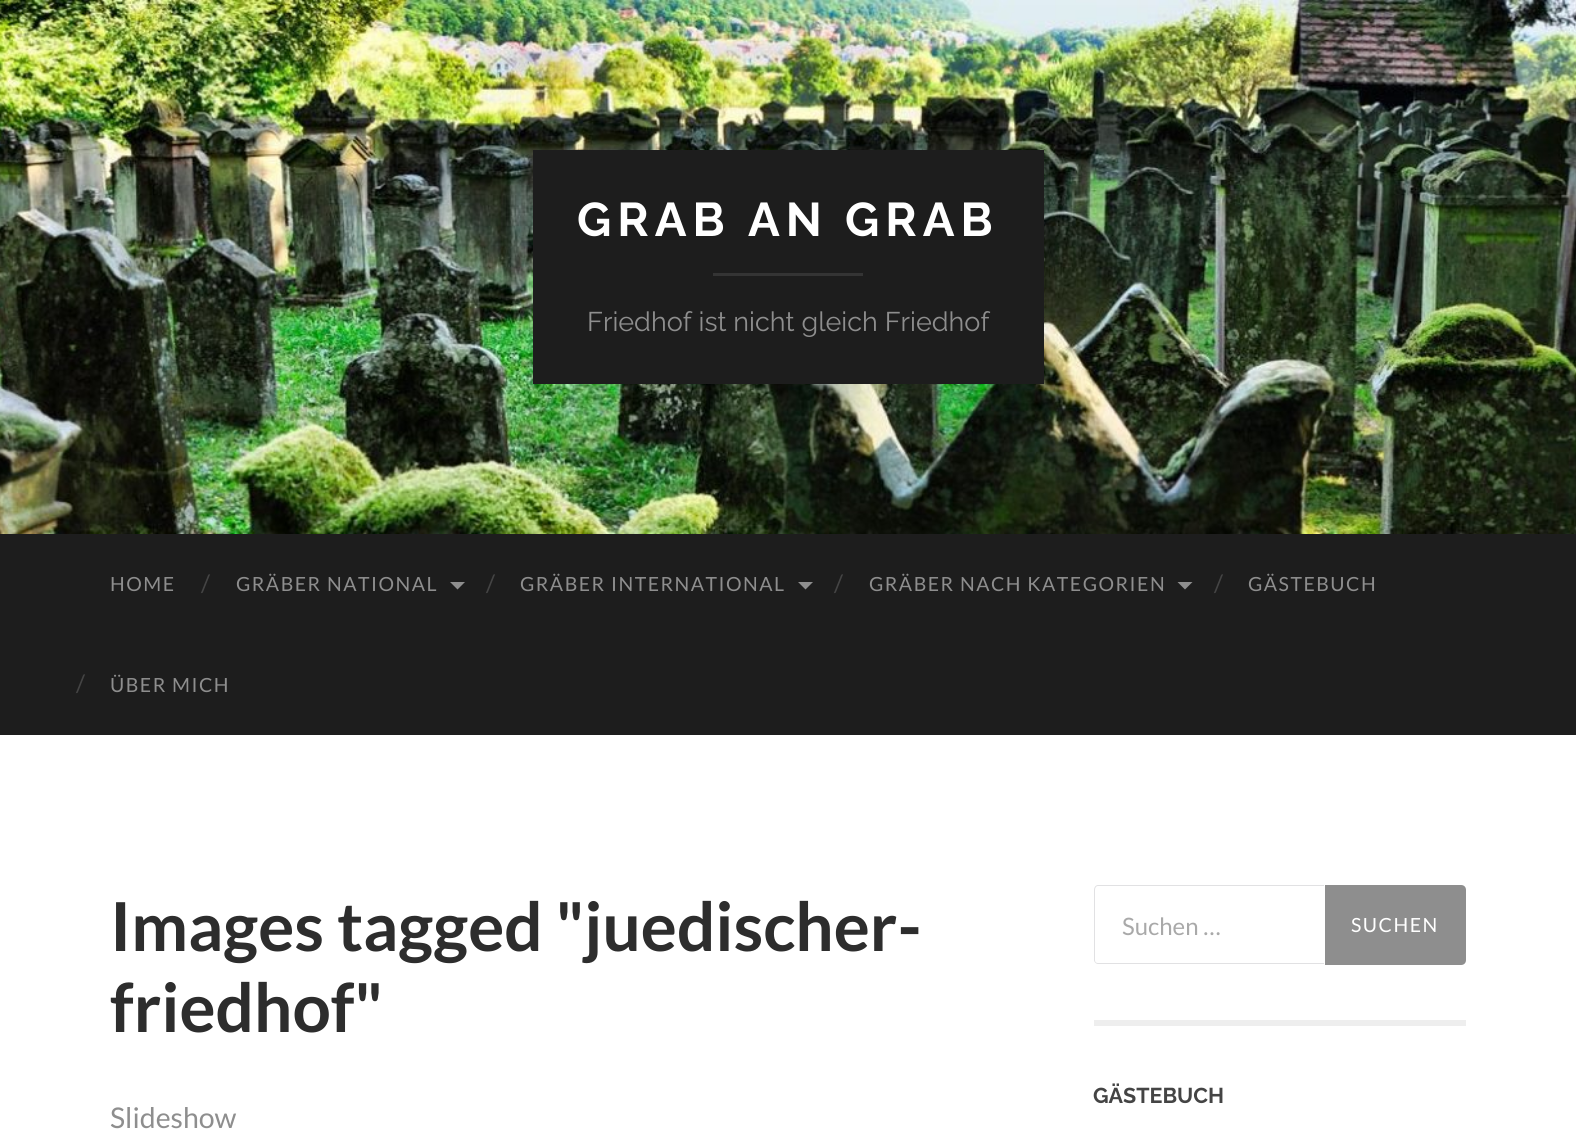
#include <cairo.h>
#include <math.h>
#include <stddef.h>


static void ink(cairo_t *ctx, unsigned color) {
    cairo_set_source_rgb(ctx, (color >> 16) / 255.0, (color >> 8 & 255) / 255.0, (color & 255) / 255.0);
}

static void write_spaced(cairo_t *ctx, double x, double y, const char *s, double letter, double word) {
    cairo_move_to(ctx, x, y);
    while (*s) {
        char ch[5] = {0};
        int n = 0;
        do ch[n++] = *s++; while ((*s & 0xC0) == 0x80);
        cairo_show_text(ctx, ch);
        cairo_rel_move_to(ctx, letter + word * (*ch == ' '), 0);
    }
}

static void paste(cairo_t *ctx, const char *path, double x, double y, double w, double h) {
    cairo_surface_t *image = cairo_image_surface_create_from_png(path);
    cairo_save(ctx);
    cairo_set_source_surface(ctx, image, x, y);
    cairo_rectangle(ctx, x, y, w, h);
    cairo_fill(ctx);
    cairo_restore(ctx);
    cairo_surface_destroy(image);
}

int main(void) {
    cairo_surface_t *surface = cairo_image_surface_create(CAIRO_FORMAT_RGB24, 1576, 1134);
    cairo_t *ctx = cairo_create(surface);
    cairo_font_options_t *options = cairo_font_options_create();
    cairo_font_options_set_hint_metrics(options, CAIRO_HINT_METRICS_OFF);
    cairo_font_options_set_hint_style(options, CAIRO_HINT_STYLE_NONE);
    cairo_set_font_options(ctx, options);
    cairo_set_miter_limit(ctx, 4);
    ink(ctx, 0xFFFFFF);
    cairo_paint(ctx);
    paste(ctx, "media/1.png", 0, 0, 1576, 534);
    ink(ctx, 0x1D1D1D);
    cairo_rectangle(ctx, 533, 150, 511, 234);
    cairo_fill(ctx);
    cairo_select_font_face(ctx, "Raleway Thin", CAIRO_FONT_SLANT_NORMAL, CAIRO_FONT_WEIGHT_NORMAL);
    cairo_set_font_size(ctx, 47.25);
    ink(ctx, 0xFFFFFF);
    write_spaced(ctx, 577, 236, "GRAB AN GRAB", 6, 0);
    ink(ctx, 0x343434);
    cairo_rectangle(ctx, 713, 273, 150, 3);
    cairo_fill(ctx);
    cairo_select_font_face(ctx, "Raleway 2 Thin", CAIRO_FONT_SLANT_NORMAL, CAIRO_FONT_WEIGHT_NORMAL);
    cairo_set_font_size(ctx, 27);
    ink(ctx, 0x8E8E8E);
    cairo_move_to(ctx, 587, 331);
    cairo_show_text(ctx, "Friedhof ist nicht gleich Friedhof");
    ink(ctx, 0x1D1D1D);
    cairo_rectangle(ctx, 0, 534, 1576, 201);
    cairo_fill(ctx);
    cairo_select_font_face(ctx, "Lato", CAIRO_FONT_SLANT_NORMAL, CAIRO_FONT_WEIGHT_NORMAL);
    cairo_set_font_size(ctx, 19.5);
    ink(ctx, 0x8E8E8E);
    write_spaced(ctx, 110, 591, "HOME", 1.5, 0);
    cairo_set_font_size(ctx, 24);
    ink(ctx, 0x444444);
    cairo_move_to(ctx, 201, 592);
    cairo_show_text(ctx, "/");
    cairo_set_font_size(ctx, 19.5);
    ink(ctx, 0x8E8E8E);
    write_spaced(ctx, 236, 591, "GRÄBER NATIONAL", 1.5, 0);
    cairo_new_path(ctx);
    cairo_move_to(ctx, 450, 582);
    cairo_line_to(ctx, 465, 582);
    cairo_line_to(ctx, 457.5, 589.5);
    cairo_close_path(ctx);
    cairo_fill(ctx);
    cairo_set_font_size(ctx, 24);
    ink(ctx, 0x444444);
    cairo_move_to(ctx, 486, 592);
    cairo_show_text(ctx, "/");
    cairo_set_font_size(ctx, 19.5);
    ink(ctx, 0x8E8E8E);
    write_spaced(ctx, 520, 591, "GRÄBER INTERNATIONAL", 1.5, 0);
    cairo_new_path(ctx);
    cairo_move_to(ctx, 798, 582);
    cairo_line_to(ctx, 813, 582);
    cairo_line_to(ctx, 805.5, 589.5);
    cairo_close_path(ctx);
    cairo_fill(ctx);
    cairo_set_font_size(ctx, 24);
    ink(ctx, 0x444444);
    cairo_move_to(ctx, 834, 592);
    cairo_show_text(ctx, "/");
    cairo_set_font_size(ctx, 19.5);
    ink(ctx, 0x8E8E8E);
    write_spaced(ctx, 869, 591, "GRÄBER NACH KATEGORIEN", 1.5, 0);
    cairo_new_path(ctx);
    cairo_move_to(ctx, 1177.5, 582);
    cairo_line_to(ctx, 1192.5, 582);
    cairo_line_to(ctx, 1185, 589.5);
    cairo_close_path(ctx);
    cairo_fill(ctx);
    cairo_set_font_size(ctx, 24);
    ink(ctx, 0x444444);
    cairo_move_to(ctx, 1214, 592);
    cairo_show_text(ctx, "/");
    cairo_set_font_size(ctx, 19.5);
    ink(ctx, 0x8E8E8E);
    write_spaced(ctx, 1248, 591, "GÄSTEBUCH", 1.5, 0);
    cairo_set_font_size(ctx, 24);
    ink(ctx, 0x444444);
    cairo_move_to(ctx, 76, 692);
    cairo_show_text(ctx, "/");
    cairo_set_font_size(ctx, 19.5);
    ink(ctx, 0x8E8E8E);
    write_spaced(ctx, 110, 692, "ÜBER MICH", 1.5, 0);
    cairo_select_font_face(ctx, "Lato", CAIRO_FONT_SLANT_NORMAL, CAIRO_FONT_WEIGHT_BOLD);
    cairo_set_font_size(ctx, 67.5);
    ink(ctx, 0x2D2D2D);
    cairo_move_to(ctx, 110, 951);
    cairo_show_text(ctx, "Images tagged \"juedischer-");
    cairo_move_to(ctx, 110, 1032);
    cairo_show_text(ctx, "friedhof\"");
    cairo_select_font_face(ctx, "Lato", CAIRO_FONT_SLANT_NORMAL, CAIRO_FONT_WEIGHT_NORMAL);
    cairo_set_font_size(ctx, 28.5);
    ink(ctx, 0x8E8E8E);
    cairo_move_to(ctx, 110, 1128);
    cairo_show_text(ctx, "Slideshow");
    ink(ctx, 0xEEEEEE);
    cairo_rectangle(ctx, 1094, 1020, 372, 6);
    cairo_fill(ctx);
    ink(ctx, 0xE1E1E3);
    cairo_set_fill_rule(ctx, CAIRO_FILL_RULE_EVEN_ODD);
    cairo_new_path(ctx);
    cairo_move_to(ctx, 1098, 885);
    cairo_line_to(ctx, 1324, 885);
    cairo_line_to(ctx, 1324, 964);
    cairo_line_to(ctx, 1098, 964);
    cairo_curve_to(ctx, 1096, 964, 1094, 962, 1094, 960);
    cairo_line_to(ctx, 1094, 890);
    cairo_curve_to(ctx, 1094, 887, 1096, 885, 1098, 885);
    cairo_close_path(ctx);
    cairo_move_to(ctx, 1098, 886);
    cairo_line_to(ctx, 1324, 886);
    cairo_line_to(ctx, 1324, 963);
    cairo_line_to(ctx, 1098, 963);
    cairo_curve_to(ctx, 1096, 963, 1095, 962, 1095, 960);
    cairo_line_to(ctx, 1095, 890);
    cairo_curve_to(ctx, 1095, 888, 1096, 886, 1098, 886);
    cairo_close_path(ctx);
    cairo_fill(ctx);
    cairo_set_font_size(ctx, 24);
    ink(ctx, 0xA9A9A9);
    cairo_move_to(ctx, 1122, 935);
    cairo_show_text(ctx, "Suchen …");
    ink(ctx, 0x8E8E8E);
    cairo_new_path(ctx);
    cairo_move_to(ctx, 1325, 885);
    cairo_line_to(ctx, 1461, 885);
    cairo_curve_to(ctx, 1464, 885, 1466, 887, 1466, 890);
    cairo_line_to(ctx, 1466, 960);
    cairo_curve_to(ctx, 1466, 963, 1464, 965, 1461, 965);
    cairo_line_to(ctx, 1325, 965);
    cairo_close_path(ctx);
    cairo_fill(ctx);
    cairo_set_font_size(ctx, 19.5);
    ink(ctx, 0xFFFFFF);
    write_spaced(ctx, 1351, 932, "SUCHEN", 1.5, 0);
    cairo_select_font_face(ctx, "Raleway Thin", CAIRO_FONT_SLANT_NORMAL, CAIRO_FONT_WEIGHT_NORMAL);
    cairo_set_font_size(ctx, 21.5);
    ink(ctx, 0x444444);
    cairo_move_to(ctx, 1093, 1103);
    cairo_show_text(ctx, "GÄSTEBUCH");
    cairo_surface_write_to_png(surface, "image.png");
    cairo_font_options_destroy(options);
    cairo_destroy(ctx);
    cairo_surface_destroy(surface);
    return 0;
}
